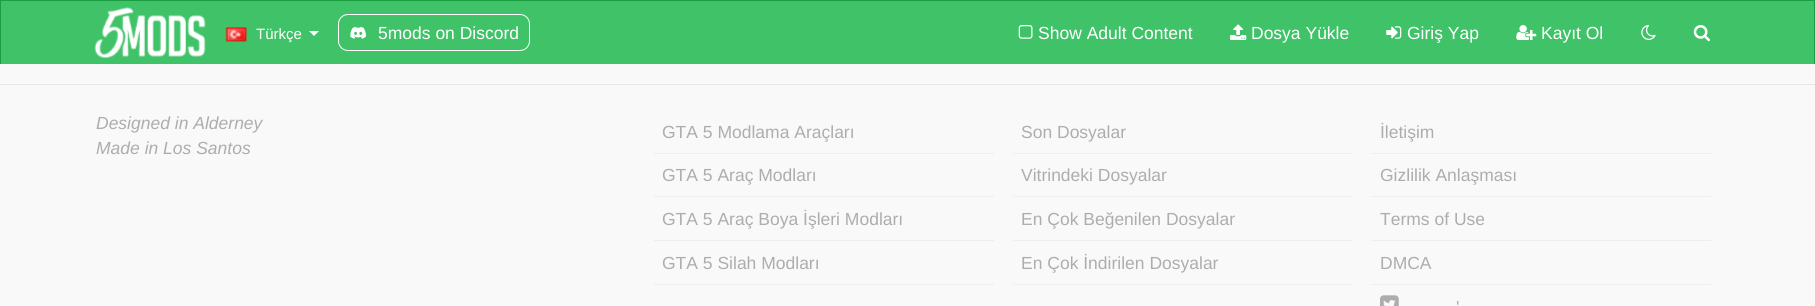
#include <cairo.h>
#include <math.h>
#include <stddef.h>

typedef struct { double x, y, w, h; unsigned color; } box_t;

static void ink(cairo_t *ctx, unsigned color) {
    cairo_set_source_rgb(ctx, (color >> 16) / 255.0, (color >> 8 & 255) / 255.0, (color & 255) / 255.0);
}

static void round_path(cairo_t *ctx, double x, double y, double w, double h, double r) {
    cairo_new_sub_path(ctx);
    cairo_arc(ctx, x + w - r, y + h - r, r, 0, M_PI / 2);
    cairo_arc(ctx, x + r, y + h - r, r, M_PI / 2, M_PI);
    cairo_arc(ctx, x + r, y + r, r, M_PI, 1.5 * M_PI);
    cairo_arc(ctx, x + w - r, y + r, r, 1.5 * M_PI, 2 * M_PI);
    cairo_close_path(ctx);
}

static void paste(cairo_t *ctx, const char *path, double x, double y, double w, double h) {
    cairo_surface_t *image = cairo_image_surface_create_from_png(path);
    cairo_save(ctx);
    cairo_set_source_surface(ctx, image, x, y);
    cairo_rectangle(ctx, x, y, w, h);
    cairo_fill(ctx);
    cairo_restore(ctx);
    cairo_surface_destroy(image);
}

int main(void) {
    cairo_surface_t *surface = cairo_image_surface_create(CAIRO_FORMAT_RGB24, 1815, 306);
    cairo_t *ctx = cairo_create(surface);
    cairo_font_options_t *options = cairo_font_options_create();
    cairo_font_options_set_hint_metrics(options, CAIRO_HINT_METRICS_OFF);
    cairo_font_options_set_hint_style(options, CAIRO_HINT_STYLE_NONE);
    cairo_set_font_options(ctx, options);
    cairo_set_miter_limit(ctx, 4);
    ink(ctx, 0xF9F9F9);
    cairo_paint(ctx);
    {
        static const box_t items[] = {
            {1, 1, 1813, 63, 0x40C368},
            {0, 0, 1815, 1, 0x1B9E42},
            {1814, 0, 1, 64, 0x1B9E42},
            {0, 0, 1, 64, 0x1B9E42},
        };
        for (size_t i = 0; i < sizeof items / sizeof *items; i++) {
            ink(ctx, items[i].color);
            cairo_rectangle(ctx, items[i].x, items[i].y, items[i].w, items[i].h);
            cairo_fill(ctx);
        }
    }
    paste(ctx, "media/1.png", 94, 7, 112, 51);
    paste(ctx, "media/2.png", 225, 27, 22, 15);
    cairo_select_font_face(ctx, "Liberation Sans", CAIRO_FONT_SLANT_NORMAL, CAIRO_FONT_WEIGHT_NORMAL);
    cairo_set_font_size(ctx, 15);
    ink(ctx, 0xFFFFFF);
    cairo_move_to(ctx, 256, 39);
    cairo_show_text(ctx, "Türkçe");
    cairo_new_path(ctx);
    cairo_move_to(ctx, 309, 31);
    cairo_line_to(ctx, 319, 31);
    cairo_line_to(ctx, 314, 36);
    cairo_close_path(ctx);
    cairo_fill(ctx);
    round_path(ctx, 338.5, 14.5, 191, 36, 9.5);
    cairo_set_line_width(ctx, 1);
    cairo_stroke(ctx);
    paste(ctx, "media/3.png", 350, 26, 16, 13);
    cairo_set_font_size(ctx, 17.5);
    cairo_move_to(ctx, 378, 39);
    cairo_show_text(ctx, "5mods on Discord");
    paste(ctx, "media/4.png", 1018, 25, 15, 14);
    cairo_move_to(ctx, 1038, 39);
    cairo_show_text(ctx, "Show Adult Content");
    paste(ctx, "media/5.png", 1230, 24, 17, 16);
    cairo_move_to(ctx, 1251, 39);
    cairo_show_text(ctx, "Dosya Yükle");
    paste(ctx, "media/6.png", 1386, 26, 16, 13);
    cairo_move_to(ctx, 1407, 39);
    cairo_show_text(ctx, "Giriş Yap");
    paste(ctx, "media/7.png", 1516, 25, 21, 15);
    cairo_move_to(ctx, 1541, 39);
    cairo_show_text(ctx, "Kayıt Ol");
    paste(ctx, "media/8.png", 1641, 25, 15, 15);
    paste(ctx, "media/9.png", 1693, 25, 17, 17);
    ink(ctx, 0xE7E7E7);
    cairo_rectangle(ctx, 0, 84, 1815, 1);
    cairo_fill(ctx);
    cairo_select_font_face(ctx, "Liberation Sans", CAIRO_FONT_SLANT_ITALIC, CAIRO_FONT_WEIGHT_NORMAL);
    ink(ctx, 0xADADAD);
    cairo_move_to(ctx, 96, 129);
    cairo_show_text(ctx, "Designed in Alderney");
    cairo_move_to(ctx, 96, 154);
    cairo_show_text(ctx, "Made in Los Santos");
    ink(ctx, 0xEEEEEE);
    cairo_rectangle(ctx, 654, 153, 340, 1);
    cairo_fill(ctx);
    cairo_select_font_face(ctx, "Liberation Sans", CAIRO_FONT_SLANT_NORMAL, CAIRO_FONT_WEIGHT_NORMAL);
    ink(ctx, 0xADADAD);
    cairo_move_to(ctx, 662, 138);
    cairo_show_text(ctx, "GTA 5 Modlama Araçları");
    ink(ctx, 0xEEEEEE);
    cairo_rectangle(ctx, 654, 196, 340, 1);
    cairo_fill(ctx);
    ink(ctx, 0xADADAD);
    cairo_move_to(ctx, 662, 181);
    cairo_show_text(ctx, "GTA 5 Araç Modları");
    ink(ctx, 0xEEEEEE);
    cairo_rectangle(ctx, 654, 240, 340, 1);
    cairo_fill(ctx);
    ink(ctx, 0xADADAD);
    cairo_move_to(ctx, 662, 225);
    cairo_show_text(ctx, "GTA 5 Araç Boya İşleri Modları");
    ink(ctx, 0xEEEEEE);
    cairo_rectangle(ctx, 654, 284, 340, 1);
    cairo_fill(ctx);
    ink(ctx, 0xADADAD);
    cairo_move_to(ctx, 662, 269);
    cairo_show_text(ctx, "GTA 5 Silah Modları");
    ink(ctx, 0xEEEEEE);
    cairo_rectangle(ctx, 1013, 153, 340, 1);
    cairo_fill(ctx);
    ink(ctx, 0xADADAD);
    cairo_move_to(ctx, 1021, 138);
    cairo_show_text(ctx, "Son Dosyalar");
    ink(ctx, 0xEEEEEE);
    cairo_rectangle(ctx, 1013, 196, 340, 1);
    cairo_fill(ctx);
    ink(ctx, 0xADADAD);
    cairo_move_to(ctx, 1021, 181);
    cairo_show_text(ctx, "Vitrindeki Dosyalar");
    ink(ctx, 0xEEEEEE);
    cairo_rectangle(ctx, 1013, 240, 340, 1);
    cairo_fill(ctx);
    ink(ctx, 0xADADAD);
    cairo_move_to(ctx, 1021, 225);
    cairo_show_text(ctx, "En Çok Beğenilen Dosyalar");
    ink(ctx, 0xEEEEEE);
    cairo_rectangle(ctx, 1013, 284, 340, 1);
    cairo_fill(ctx);
    ink(ctx, 0xADADAD);
    cairo_move_to(ctx, 1021, 269);
    cairo_show_text(ctx, "En Çok İndirilen Dosyalar");
    ink(ctx, 0xEEEEEE);
    cairo_rectangle(ctx, 1371, 153, 340, 1);
    cairo_fill(ctx);
    ink(ctx, 0xADADAD);
    cairo_move_to(ctx, 1380, 138);
    cairo_show_text(ctx, "İletişim");
    ink(ctx, 0xEEEEEE);
    cairo_rectangle(ctx, 1371, 196, 340, 1);
    cairo_fill(ctx);
    ink(ctx, 0xADADAD);
    cairo_move_to(ctx, 1380, 181);
    cairo_show_text(ctx, "Gizlilik Anlaşması");
    ink(ctx, 0xEEEEEE);
    cairo_rectangle(ctx, 1371, 240, 340, 1);
    cairo_fill(ctx);
    ink(ctx, 0xADADAD);
    cairo_move_to(ctx, 1380, 225);
    cairo_show_text(ctx, "Terms of Use");
    ink(ctx, 0xEEEEEE);
    cairo_rectangle(ctx, 1371, 284, 340, 1);
    cairo_fill(ctx);
    ink(ctx, 0xADADAD);
    cairo_move_to(ctx, 1380, 269);
    cairo_show_text(ctx, "DMCA");
    paste(ctx, "media/10.png", 1380, 295, 19, 11);
    cairo_move_to(ctx, 1456, 313);
    cairo_show_text(ctx, "'");
    cairo_surface_write_to_png(surface, "image.png");
    cairo_font_options_destroy(options);
    cairo_destroy(ctx);
    cairo_surface_destroy(surface);
    return 0;
}
